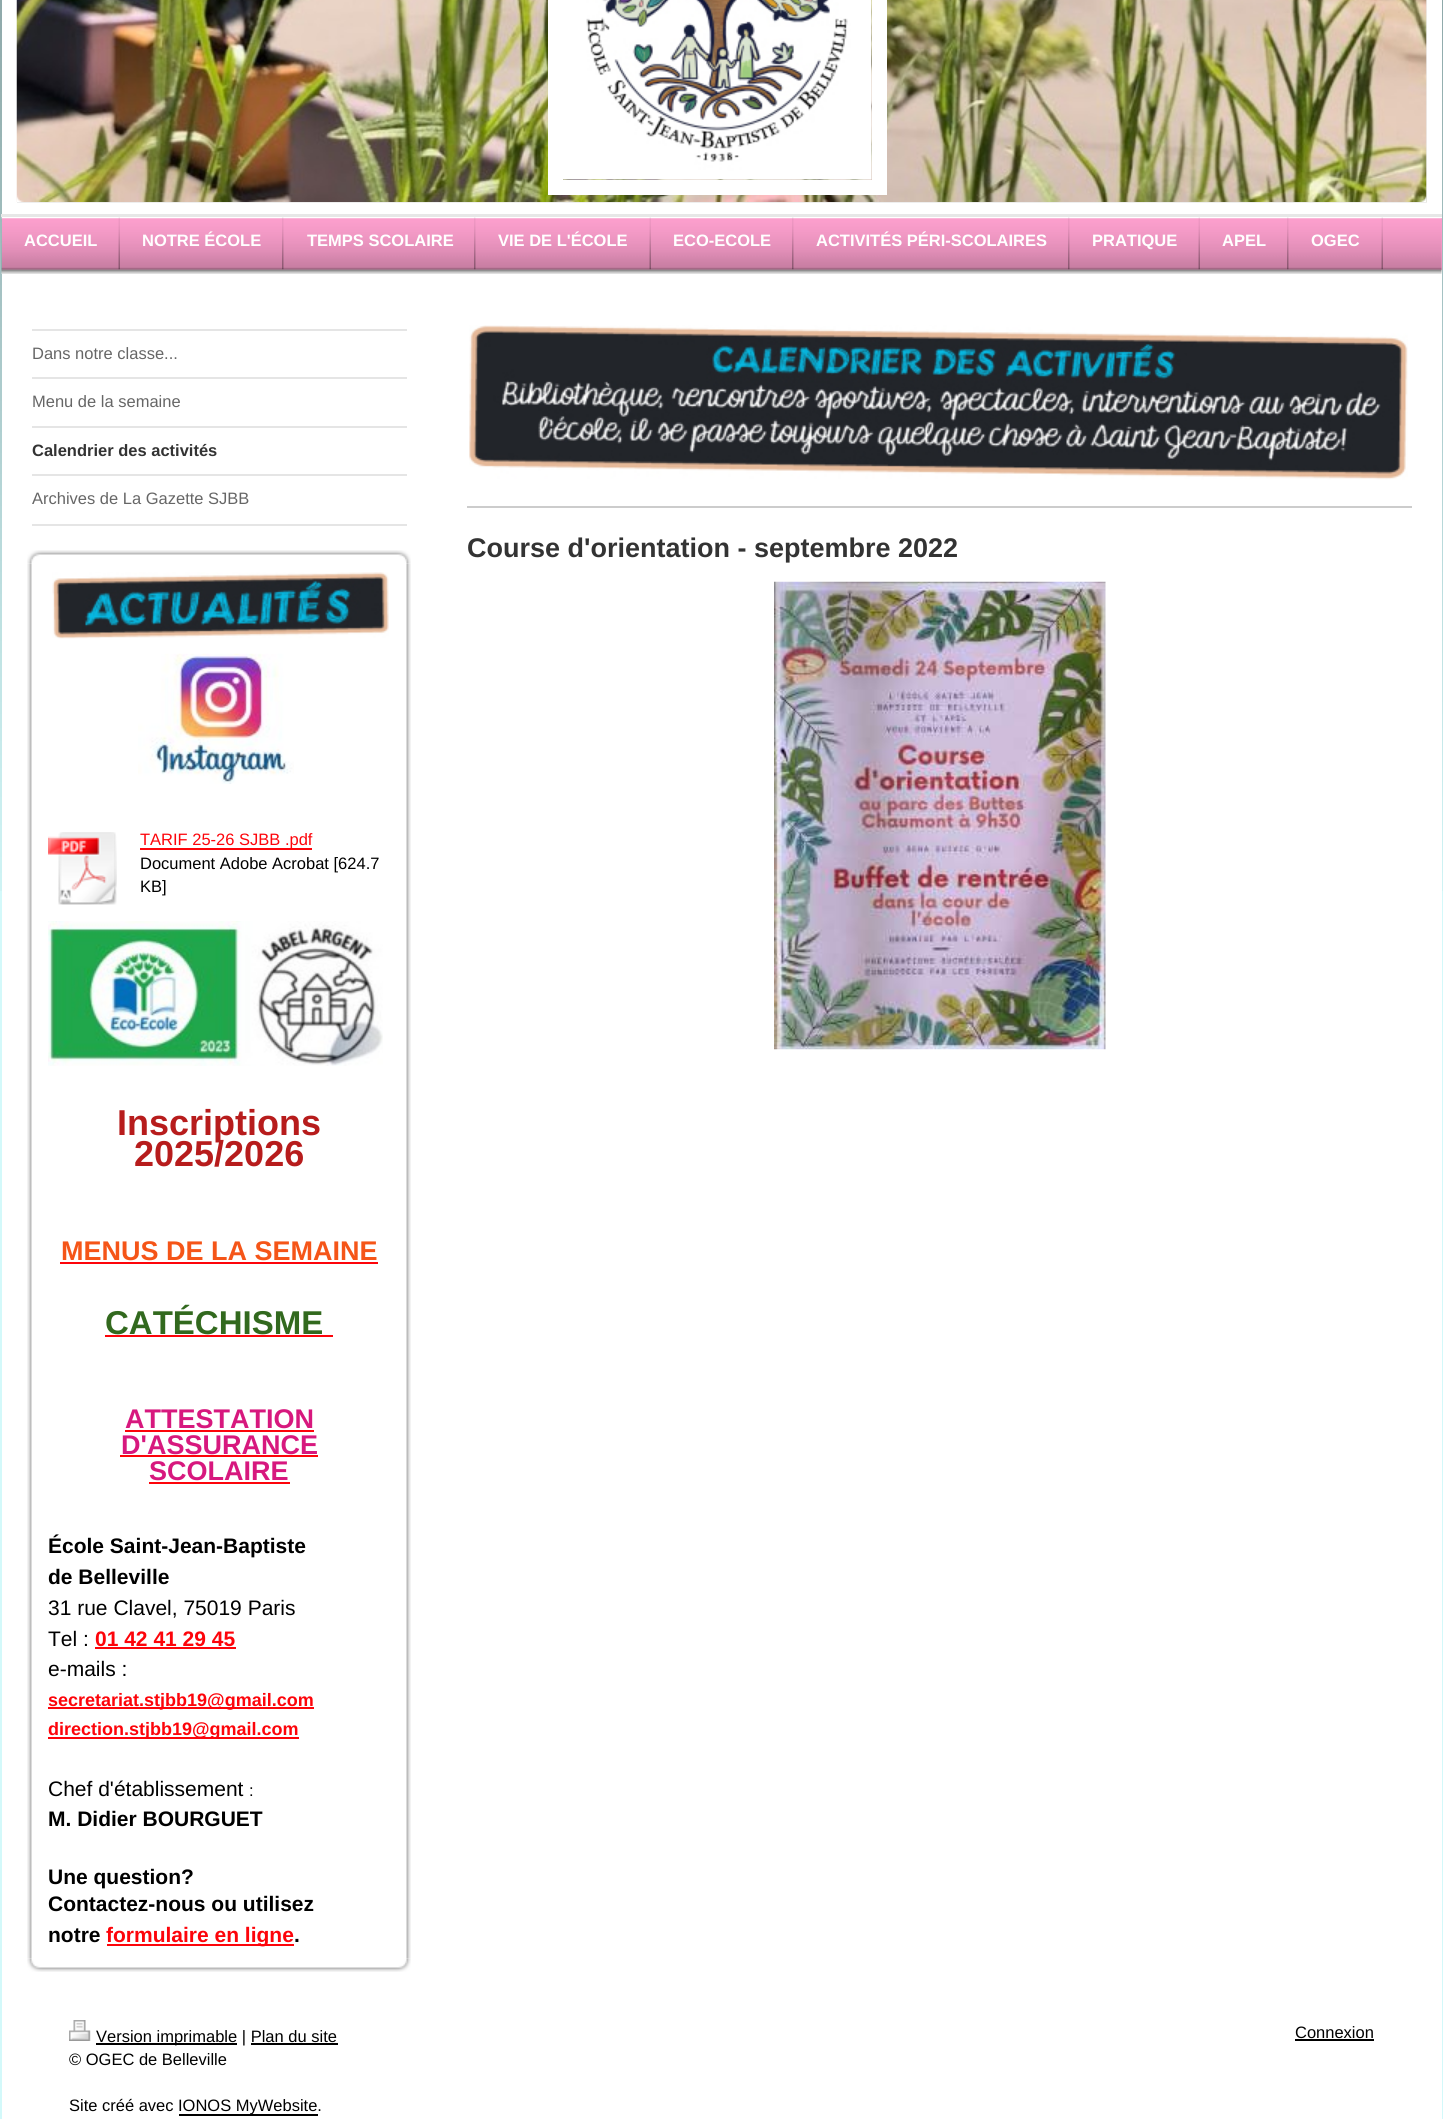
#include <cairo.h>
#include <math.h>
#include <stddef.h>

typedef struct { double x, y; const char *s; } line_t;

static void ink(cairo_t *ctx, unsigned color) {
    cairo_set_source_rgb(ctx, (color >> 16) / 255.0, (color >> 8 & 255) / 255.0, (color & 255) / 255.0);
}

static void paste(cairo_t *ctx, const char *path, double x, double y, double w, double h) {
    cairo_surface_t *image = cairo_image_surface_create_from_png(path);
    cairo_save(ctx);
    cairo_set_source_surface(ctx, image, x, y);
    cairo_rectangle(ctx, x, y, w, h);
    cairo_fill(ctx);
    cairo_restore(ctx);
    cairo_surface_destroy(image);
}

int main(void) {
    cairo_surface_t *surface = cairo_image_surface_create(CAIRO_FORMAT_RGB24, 1443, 2119);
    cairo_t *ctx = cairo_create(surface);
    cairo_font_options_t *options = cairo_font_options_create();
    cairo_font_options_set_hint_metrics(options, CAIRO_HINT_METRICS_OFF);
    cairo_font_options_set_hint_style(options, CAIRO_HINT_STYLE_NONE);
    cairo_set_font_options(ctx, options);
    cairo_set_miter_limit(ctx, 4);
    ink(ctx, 0xD3F9FA);
    cairo_paint(ctx);
    paste(ctx, "media/1.png", 0, 0, 1443, 891);
    ink(ctx, 0xFFFFFF);
    cairo_rectangle(ctx, 2, 0, 1440, 2119);
    cairo_fill(ctx);
    ink(ctx, 0xEEEEEE);
    cairo_rectangle(ctx, 17, 0, 1410, 203);
    cairo_fill(ctx);
    paste(ctx, "media/3.png", 16, 0, 1411, 202);
    cairo_rectangle(ctx, 555.5, -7.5, 324, 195);
    ink(ctx, 0xFFFFFF);
    cairo_set_line_width(ctx, 15);
    cairo_stroke(ctx);
    paste(ctx, "media/2.png", 563, 0, 309, 180);
    paste(ctx, "media/4.png", 16, 195, 8, 7);
    paste(ctx, "media/5.png", 1419, 194, 8, 8);
    ink(ctx, 0xE7E7E7);
    cairo_rectangle(ctx, 1, 214, 1441, 3);
    cairo_fill(ctx);
    ink(ctx, 0xFC9FCD);
    cairo_rectangle(ctx, 2, 218, 1440, 52);
    cairo_fill(ctx);
    paste(ctx, "media/14.png", 1, 269, 1441, 5);
    paste(ctx, "media/6.png", 1, 217, 1441, 53);
    paste(ctx, "media/7.png", 118, 217, 2, 53);
    cairo_select_font_face(ctx, "Liberation Sans", CAIRO_FONT_SLANT_NORMAL, CAIRO_FONT_WEIGHT_BOLD);
    cairo_set_font_size(ctx, 16.5);
    ink(ctx, 0xFFFFFF);
    cairo_move_to(ctx, 24, 246);
    cairo_show_text(ctx, "ACCUEIL");
    paste(ctx, "media/8.png", 282, 217, 2, 53);
    cairo_move_to(ctx, 142, 246);
    cairo_show_text(ctx, "NOTRE ÉCOLE");
    paste(ctx, "media/9.png", 474, 217, 2, 53);
    cairo_move_to(ctx, 307, 246);
    cairo_show_text(ctx, "TEMPS SCOLAIRE");
    paste(ctx, "media/10.png", 649, 217, 2, 53);
    cairo_move_to(ctx, 498, 246);
    cairo_show_text(ctx, "VIE DE L'ÉCOLE");
    paste(ctx, "media/11.png", 792, 217, 2, 53);
    cairo_move_to(ctx, 673, 246);
    cairo_show_text(ctx, "ECO-ECOLE");
    paste(ctx, "media/12.png", 1068, 217, 2, 53);
    cairo_move_to(ctx, 816, 246);
    cairo_show_text(ctx, "ACTIVITÉS PÉRI-SCOLAIRES");
    paste(ctx, "media/13.png", 1198, 217, 2, 53);
    cairo_move_to(ctx, 1092, 246);
    cairo_show_text(ctx, "PRATIQUE");
    paste(ctx, "media/11.png", 1287, 217, 2, 53);
    cairo_move_to(ctx, 1222, 246);
    cairo_show_text(ctx, "APEL");
    paste(ctx, "media/10.png", 1381, 217, 2, 53);
    cairo_move_to(ctx, 1311, 246);
    cairo_show_text(ctx, "OGEC");
    ink(ctx, 0xE5E5E5);
    cairo_rectangle(ctx, 32, 329, 375, 2);
    cairo_fill(ctx);
    cairo_select_font_face(ctx, "Liberation Sans", CAIRO_FONT_SLANT_NORMAL, CAIRO_FONT_WEIGHT_NORMAL);
    ink(ctx, 0x666666);
    cairo_move_to(ctx, 32, 359);
    cairo_show_text(ctx, "Dans notre classe...");
    ink(ctx, 0xE5E5E5);
    cairo_rectangle(ctx, 32, 377, 375, 2);
    cairo_fill(ctx);
    ink(ctx, 0x666666);
    cairo_move_to(ctx, 32, 407);
    cairo_show_text(ctx, "Menu de la semaine");
    ink(ctx, 0xE5E5E5);
    cairo_rectangle(ctx, 32, 426, 375, 2);
    cairo_fill(ctx);
    cairo_select_font_face(ctx, "Liberation Sans", CAIRO_FONT_SLANT_NORMAL, CAIRO_FONT_WEIGHT_BOLD);
    ink(ctx, 0x333333);
    cairo_move_to(ctx, 32, 456);
    cairo_show_text(ctx, "Calendrier des activités");
    ink(ctx, 0xE5E5E5);
    cairo_rectangle(ctx, 32, 474, 375, 2);
    cairo_fill(ctx);
    cairo_rectangle(ctx, 32, 524, 375, 2);
    cairo_fill(ctx);
    cairo_select_font_face(ctx, "Liberation Sans", CAIRO_FONT_SLANT_NORMAL, CAIRO_FONT_WEIGHT_NORMAL);
    ink(ctx, 0x666666);
    cairo_move_to(ctx, 32, 504);
    cairo_show_text(ctx, "Archives de La Gazette SJBB");
    paste(ctx, "media/15.png", 27, 550, 384, 14);
    paste(ctx, "media/16.png", 27, 563, 384, 1396);
    paste(ctx, "media/17.png", 52, 572, 337, 67);
    paste(ctx, "media/18.png", 138, 653, 156, 131);
    paste(ctx, "media/19.png", 48, 832, 69, 73);
    ink(ctx, 0xFD040A);
    cairo_rectangle(ctx, 140, 848, 172, 2);
    cairo_fill(ctx);
    cairo_move_to(ctx, 140, 845);
    cairo_show_text(ctx, "TARIF 25-26 SJBB .pdf");
    ink(ctx, 0x000000);
    cairo_move_to(ctx, 140, 869);
    cairo_show_text(ctx, "Document Adobe Acrobat [624.7");
    cairo_move_to(ctx, 140, 892);
    cairo_show_text(ctx, "KB]");
    paste(ctx, "media/20.png", 48, 921, 335, 145);
    cairo_select_font_face(ctx, "Liberation Sans", CAIRO_FONT_SLANT_NORMAL, CAIRO_FONT_WEIGHT_BOLD);
    cairo_set_font_size(ctx, 36);
    ink(ctx, 0xB71C1C);
    cairo_move_to(ctx, 117, 1135);
    cairo_show_text(ctx, "Inscriptions");
    cairo_move_to(ctx, 134, 1166);
    cairo_show_text(ctx, "2025/2026");
    cairo_set_font_size(ctx, 27);
    ink(ctx, 0xF55518);
    cairo_move_to(ctx, 61, 1260);
    cairo_show_text(ctx, "MENUS DE LA SEMAINE");
    ink(ctx, 0xFD040A);
    cairo_rectangle(ctx, 60, 1262, 318, 2);
    cairo_fill(ctx);
    cairo_set_font_size(ctx, 33);
    ink(ctx, 0x32691E);
    cairo_move_to(ctx, 105, 1334);
    cairo_show_text(ctx, "CATÉCHISME");
    ink(ctx, 0xFD040A);
    cairo_rectangle(ctx, 105, 1335, 228, 2);
    cairo_fill(ctx);
    cairo_set_font_size(ctx, 27);
    ink(ctx, 0xD7187E);
    cairo_move_to(ctx, 125, 1428);
    cairo_show_text(ctx, "ATTESTATION");
    ink(ctx, 0xFD040A);
    cairo_rectangle(ctx, 125, 1430, 189, 2);
    cairo_fill(ctx);
    ink(ctx, 0xD7187E);
    cairo_move_to(ctx, 121, 1454);
    cairo_show_text(ctx, "D'ASSURANCE");
    ink(ctx, 0xFD040A);
    cairo_rectangle(ctx, 120, 1455, 198, 2);
    cairo_fill(ctx);
    ink(ctx, 0xD7187E);
    cairo_move_to(ctx, 149, 1480);
    cairo_show_text(ctx, "SCOLAIRE");
    ink(ctx, 0xFD040A);
    cairo_rectangle(ctx, 149, 1482, 141, 2);
    cairo_fill(ctx);
    cairo_set_font_size(ctx, 21);
    ink(ctx, 0x000000);
    cairo_move_to(ctx, 48, 1553);
    cairo_show_text(ctx, "École Saint-Jean-Baptiste");
    cairo_move_to(ctx, 48, 1584);
    cairo_show_text(ctx, "de Belleville");
    cairo_select_font_face(ctx, "Liberation Sans", CAIRO_FONT_SLANT_NORMAL, CAIRO_FONT_WEIGHT_NORMAL);
    cairo_move_to(ctx, 48, 1615);
    cairo_show_text(ctx, "31 rue Clavel, 75019 Paris");
    cairo_move_to(ctx, 48, 1646);
    cairo_show_text(ctx, "Tel :");
    cairo_select_font_face(ctx, "Liberation Sans", CAIRO_FONT_SLANT_NORMAL, CAIRO_FONT_WEIGHT_BOLD);
    ink(ctx, 0xFD040A);
    cairo_move_to(ctx, 95, 1646);
    cairo_show_text(ctx, "01 42 41 29 45");
    cairo_rectangle(ctx, 95, 1647, 141, 2);
    cairo_fill(ctx);
    cairo_select_font_face(ctx, "Liberation Sans", CAIRO_FONT_SLANT_NORMAL, CAIRO_FONT_WEIGHT_NORMAL);
    ink(ctx, 0x000000);
    cairo_move_to(ctx, 48, 1676);
    cairo_show_text(ctx, "e-mails :");
    ink(ctx, 0xFD040A);
    cairo_rectangle(ctx, 48, 1707, 266, 2);
    cairo_fill(ctx);
    cairo_select_font_face(ctx, "Liberation Sans", CAIRO_FONT_SLANT_NORMAL, CAIRO_FONT_WEIGHT_BOLD);
    cairo_set_font_size(ctx, 18);
    cairo_move_to(ctx, 48, 1706);
    cairo_show_text(ctx, "secretariat.stjbb19@gmail.com");
    cairo_rectangle(ctx, 48, 1737, 251, 2);
    cairo_fill(ctx);
    cairo_move_to(ctx, 48, 1735);
    cairo_show_text(ctx, "direction.stjbb19@gmail.com");
    cairo_select_font_face(ctx, "Liberation Sans", CAIRO_FONT_SLANT_NORMAL, CAIRO_FONT_WEIGHT_NORMAL);
    cairo_set_font_size(ctx, 21);
    ink(ctx, 0x000000);
    cairo_move_to(ctx, 48, 1796);
    cairo_show_text(ctx, "Chef d'établissement");
    cairo_set_font_size(ctx, 16.5);
    cairo_move_to(ctx, 249, 1796);
    cairo_show_text(ctx, ":");
    cairo_select_font_face(ctx, "Liberation Sans", CAIRO_FONT_SLANT_NORMAL, CAIRO_FONT_WEIGHT_BOLD);
    cairo_set_font_size(ctx, 21);
    {
        static const line_t items[] = {
            {48, 1826, "M. Didier BOURGUET"},
            {48, 1884, "Une question?"},
            {48, 1911, "Contactez-nous ou utilisez"},
            {48, 1942, "notre"},
        };
        for (size_t i = 0; i < sizeof items / sizeof *items; i++) {
            cairo_move_to(ctx, items[i].x, items[i].y);
            cairo_show_text(ctx, items[i].s);
        }
    }
    ink(ctx, 0xFD040A);
    cairo_rectangle(ctx, 107, 1944, 187, 2);
    cairo_fill(ctx);
    cairo_move_to(ctx, 106, 1942);
    cairo_show_text(ctx, "formulaire en ligne");
    ink(ctx, 0x000000);
    cairo_move_to(ctx, 294, 1942);
    cairo_show_text(ctx, ".");
    paste(ctx, "media/21.png", 27, 1958, 384, 14);
    paste(ctx, "media/22.png", 469, 325, 939, 155);
    ink(ctx, 0xCCCCCC);
    cairo_rectangle(ctx, 467, 506, 945, 2);
    cairo_fill(ctx);
    cairo_set_font_size(ctx, 27);
    ink(ctx, 0x333333);
    cairo_move_to(ctx, 467, 557);
    cairo_show_text(ctx, "Course d'orientation - septembre 2022");
    paste(ctx, "media/23.png", 774, 581, 332, 469);
    paste(ctx, "media/24.png", 69, 2020, 22, 21);
    ink(ctx, 0x000000);
    cairo_rectangle(ctx, 96, 2043, 141, 2);
    cairo_fill(ctx);
    cairo_select_font_face(ctx, "Liberation Sans", CAIRO_FONT_SLANT_NORMAL, CAIRO_FONT_WEIGHT_NORMAL);
    cairo_set_font_size(ctx, 16.5);
    cairo_move_to(ctx, 96, 2042);
    cairo_show_text(ctx, "Version imprimable | Plan du site");
    cairo_rectangle(ctx, 251, 2043, 87, 2);
    cairo_fill(ctx);
    cairo_move_to(ctx, 69, 2065);
    cairo_show_text(ctx, "© OGEC de Belleville");
    cairo_move_to(ctx, 69, 2111);
    cairo_show_text(ctx, "Site créé avec");
    cairo_rectangle(ctx, 179, 2114, 139, 2);
    cairo_fill(ctx);
    cairo_move_to(ctx, 178, 2111);
    cairo_show_text(ctx, "IONOS MyWebsite.");
    cairo_move_to(ctx, 1295, 2038);
    cairo_show_text(ctx, "Connexion");
    cairo_rectangle(ctx, 1295, 2039, 79, 2);
    cairo_fill(ctx);
    cairo_surface_write_to_png(surface, "image.png");
    cairo_font_options_destroy(options);
    cairo_destroy(ctx);
    cairo_surface_destroy(surface);
    return 0;
}
